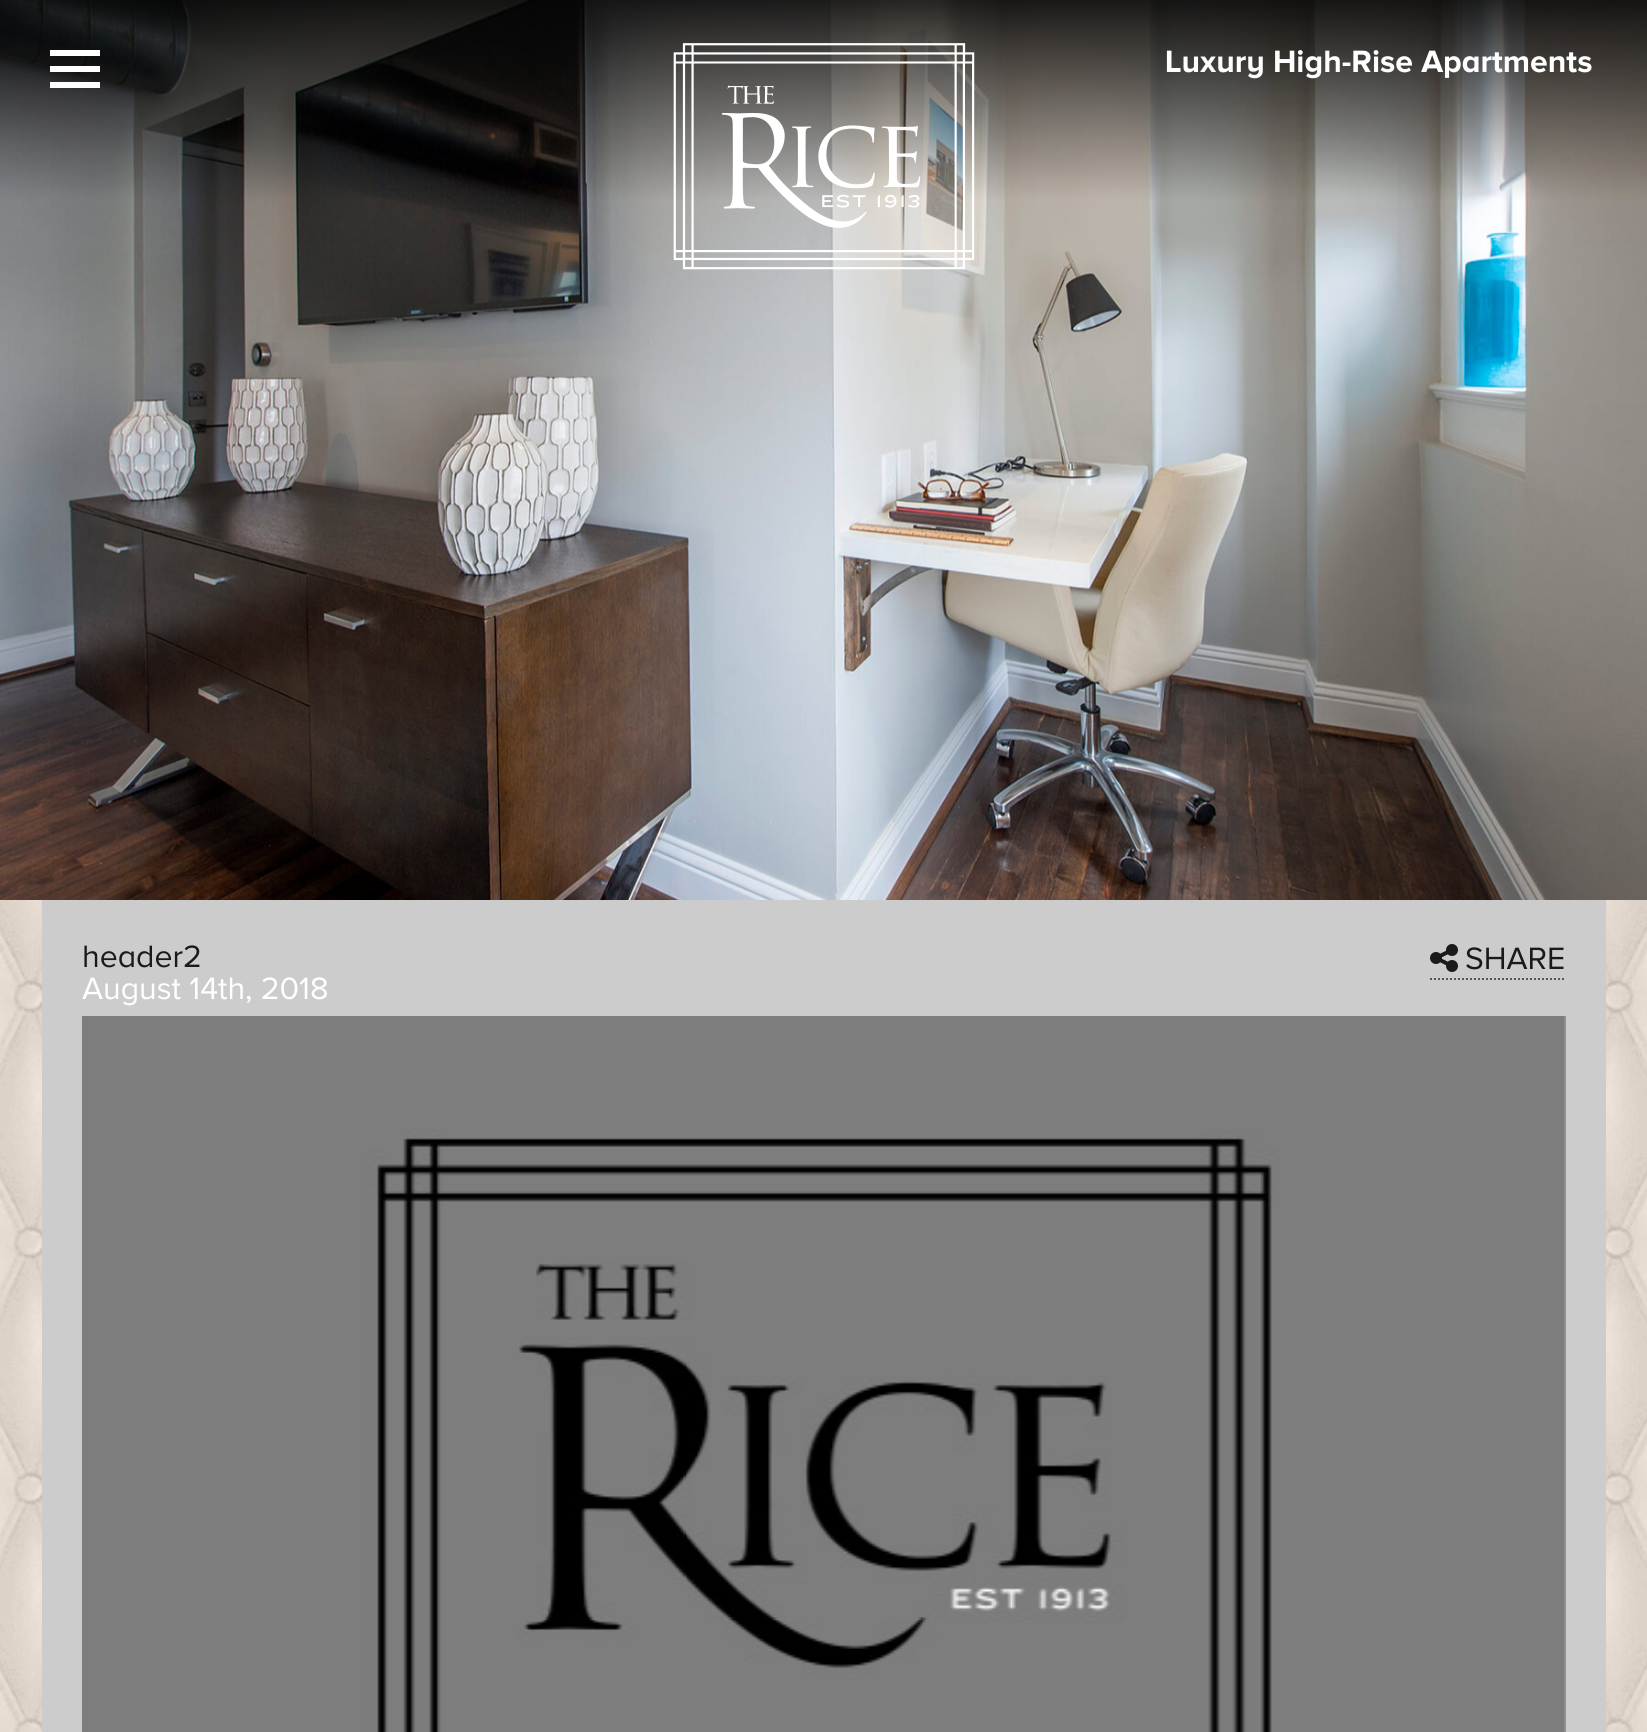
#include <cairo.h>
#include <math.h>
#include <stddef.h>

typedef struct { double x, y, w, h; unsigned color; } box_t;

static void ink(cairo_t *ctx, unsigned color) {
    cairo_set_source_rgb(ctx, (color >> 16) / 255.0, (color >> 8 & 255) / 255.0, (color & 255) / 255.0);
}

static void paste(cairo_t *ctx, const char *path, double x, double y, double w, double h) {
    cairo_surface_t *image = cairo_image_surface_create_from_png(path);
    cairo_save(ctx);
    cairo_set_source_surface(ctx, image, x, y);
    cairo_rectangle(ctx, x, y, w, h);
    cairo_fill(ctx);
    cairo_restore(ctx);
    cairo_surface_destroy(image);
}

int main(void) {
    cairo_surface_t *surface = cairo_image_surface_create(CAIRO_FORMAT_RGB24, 1647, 1732);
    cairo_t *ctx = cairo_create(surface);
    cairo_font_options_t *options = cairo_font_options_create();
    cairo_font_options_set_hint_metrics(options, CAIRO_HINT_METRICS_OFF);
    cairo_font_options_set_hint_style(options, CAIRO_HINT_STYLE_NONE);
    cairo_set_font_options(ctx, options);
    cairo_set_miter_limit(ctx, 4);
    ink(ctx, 0xFFFFFF);
    cairo_paint(ctx);
    paste(ctx, "media/1.png", 0, 0, 1647, 900);
    {
        static const box_t items[] = {
            {50, 50, 50, 6, 0xFFFFFF},
            {50, 66, 50, 6, 0xFFFFFF},
            {50, 82, 50, 6, 0xFFFFFF},
        };
        for (size_t i = 0; i < sizeof items / sizeof *items; i++) {
            ink(ctx, items[i].color);
            cairo_rectangle(ctx, items[i].x, items[i].y, items[i].w, items[i].h);
            cairo_fill(ctx);
        }
    }
    paste(ctx, "media/2.png", 673, 43, 302, 227);
    cairo_select_font_face(ctx, "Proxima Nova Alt", CAIRO_FONT_SLANT_NORMAL, CAIRO_FONT_WEIGHT_BOLD);
    cairo_set_font_size(ctx, 32);
    cairo_move_to(ctx, 1165, 72);
    cairo_show_text(ctx, "Luxury High-Rise Apartments");
    paste(ctx, "media/3.png", 0, 900, 1647, 832);
    ink(ctx, 0xCCCCCC);
    cairo_rectangle(ctx, 42, 900, 1564, 832);
    cairo_fill(ctx);
    cairo_select_font_face(ctx, "Proxima Nova Alt", CAIRO_FONT_SLANT_NORMAL, CAIRO_FONT_WEIGHT_NORMAL);
    ink(ctx, 0x1A1A1A);
    cairo_move_to(ctx, 82, 967);
    cairo_show_text(ctx, "header2");
    cairo_new_path(ctx);
    cairo_move_to(ctx, 1430, 979);
    cairo_line_to(ctx, 1566, 979);
    ink(ctx, 0x555555);
    cairo_set_dash(ctx, (double[]){2, 2}, 2, 0);
    cairo_stroke(ctx);
    paste(ctx, "media/4.png", 1430, 944, 28, 28);
    ink(ctx, 0x1A1A1A);
    cairo_move_to(ctx, 1465, 969);
    cairo_show_text(ctx, "SHARE");
    ink(ctx, 0xFFFFFF);
    cairo_move_to(ctx, 82, 999);
    cairo_show_text(ctx, "August 14th, 2018");
    paste(ctx, "media/5.png", 82, 1016, 1484, 716);
    cairo_surface_write_to_png(surface, "image.png");
    cairo_font_options_destroy(options);
    cairo_destroy(ctx);
    cairo_surface_destroy(surface);
    return 0;
}
